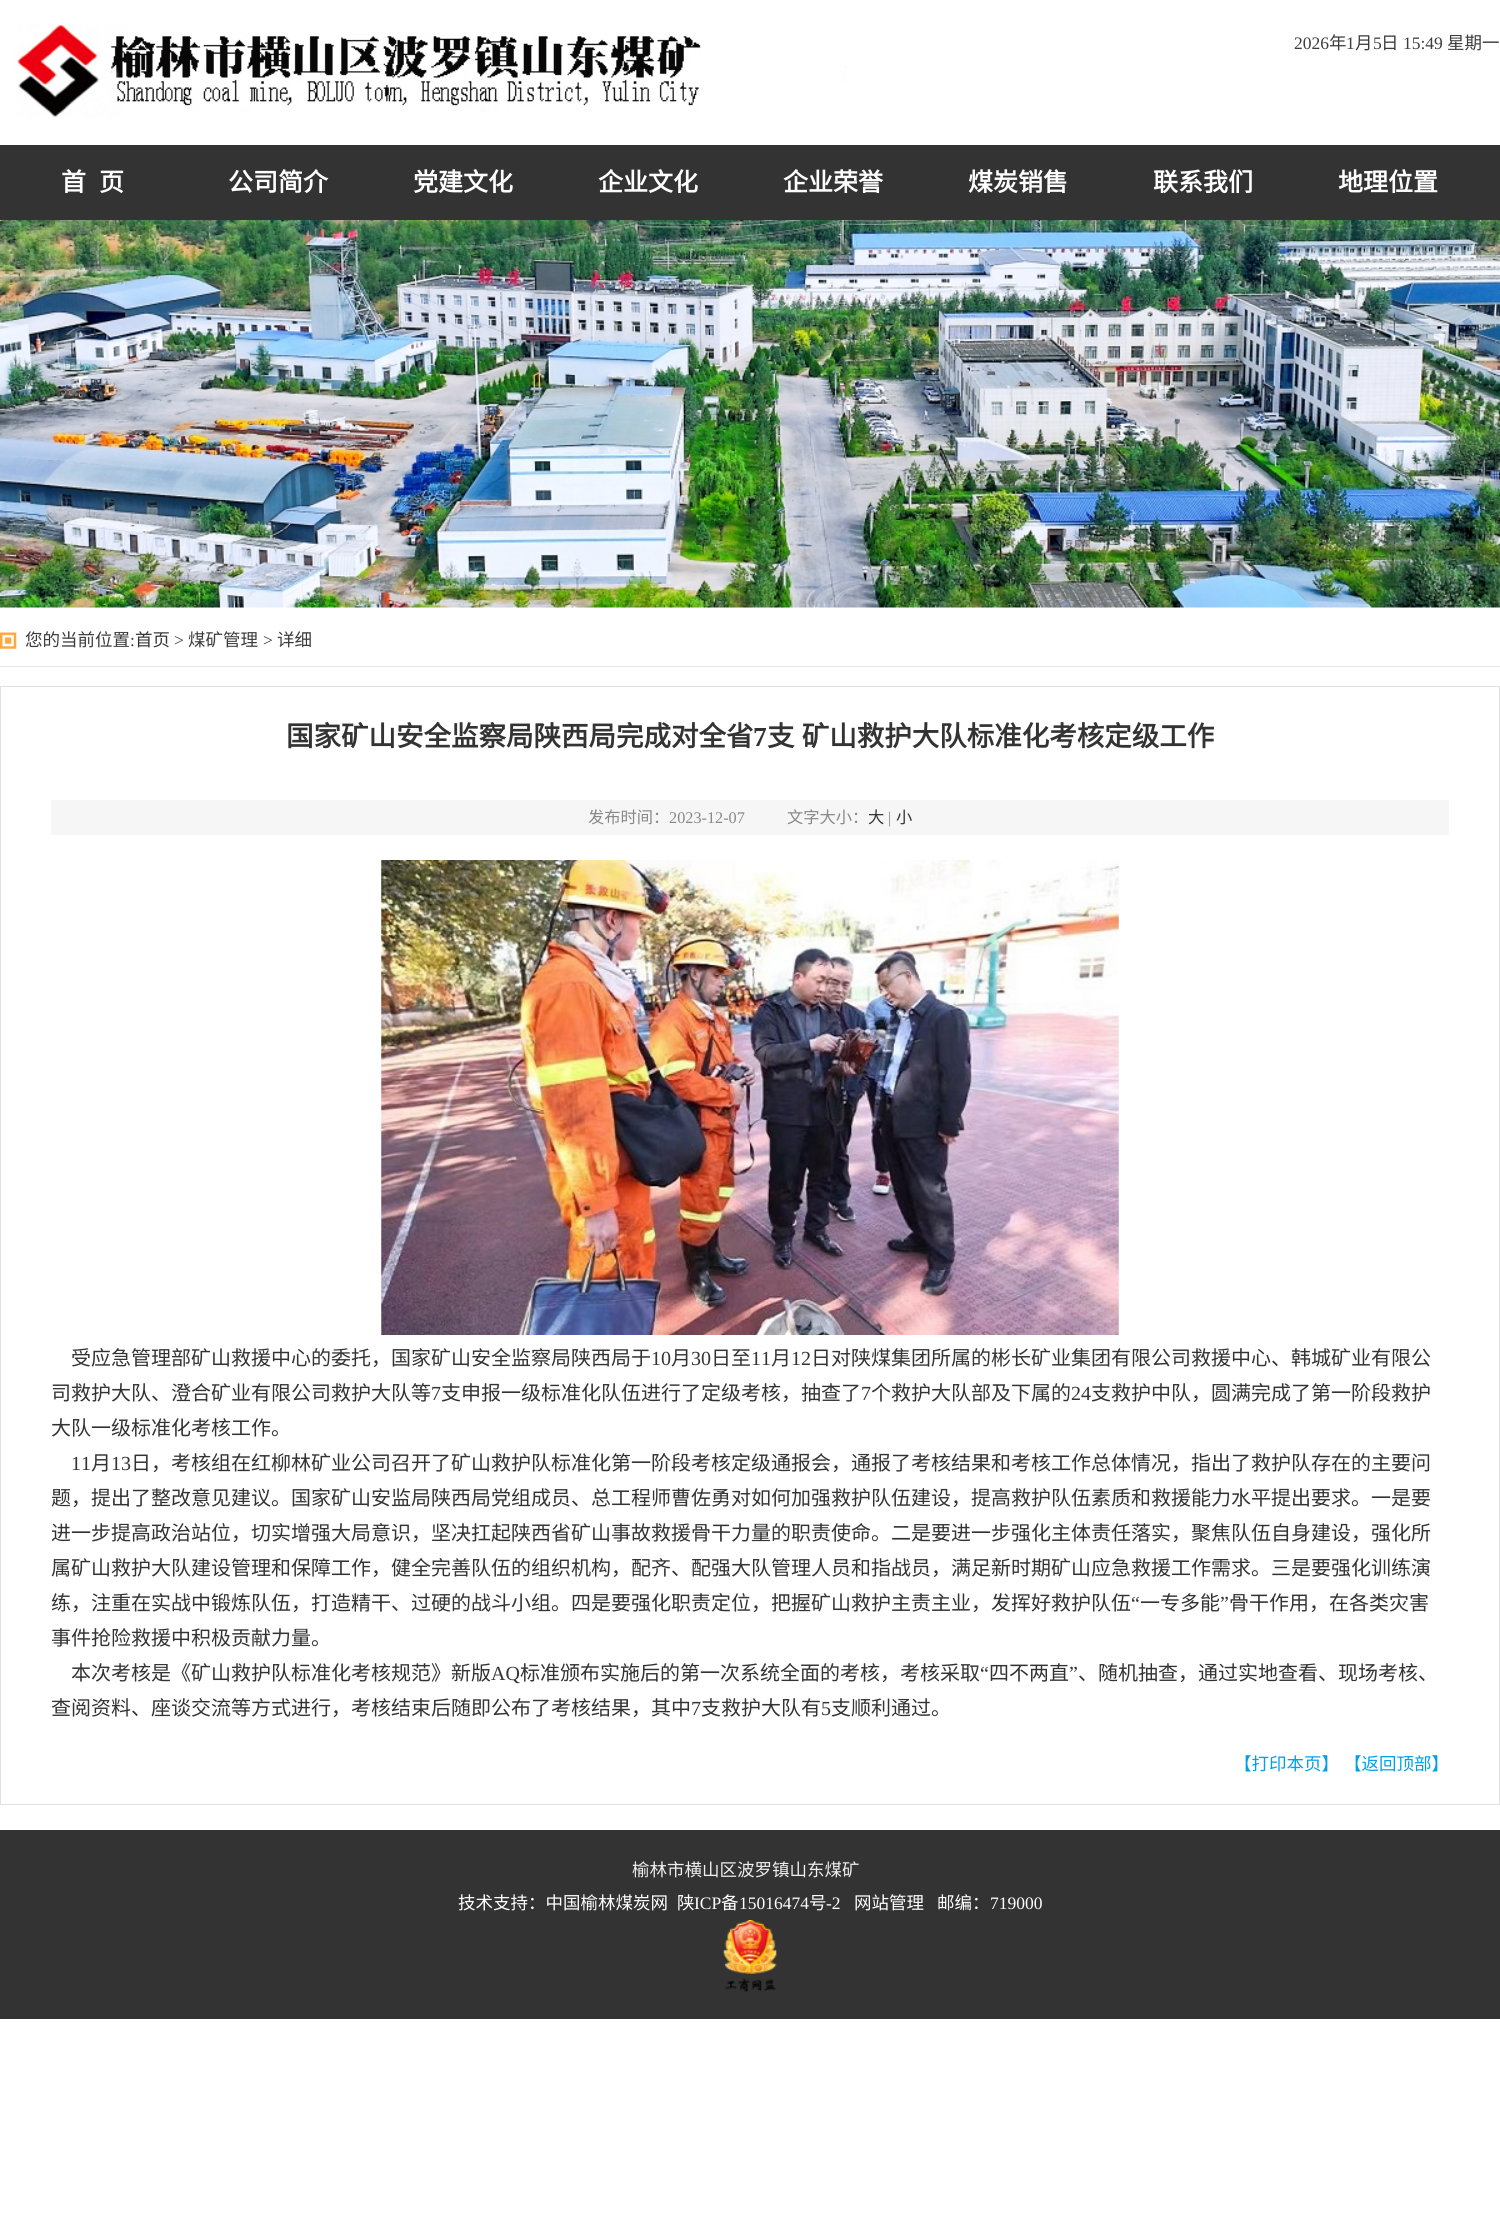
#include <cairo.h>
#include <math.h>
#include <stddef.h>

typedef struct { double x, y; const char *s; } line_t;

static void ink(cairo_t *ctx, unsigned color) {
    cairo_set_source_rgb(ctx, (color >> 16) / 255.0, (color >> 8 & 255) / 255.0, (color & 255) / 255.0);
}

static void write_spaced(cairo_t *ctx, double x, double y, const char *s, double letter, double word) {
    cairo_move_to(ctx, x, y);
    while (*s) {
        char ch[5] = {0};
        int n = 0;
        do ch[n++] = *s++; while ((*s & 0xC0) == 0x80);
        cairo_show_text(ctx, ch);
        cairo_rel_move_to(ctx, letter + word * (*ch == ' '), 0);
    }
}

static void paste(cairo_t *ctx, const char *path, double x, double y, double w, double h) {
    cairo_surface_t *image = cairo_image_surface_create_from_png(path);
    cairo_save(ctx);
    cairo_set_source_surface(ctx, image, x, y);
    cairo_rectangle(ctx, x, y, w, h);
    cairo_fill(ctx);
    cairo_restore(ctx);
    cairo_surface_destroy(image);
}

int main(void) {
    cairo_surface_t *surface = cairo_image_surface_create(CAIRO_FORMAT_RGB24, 1500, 2213);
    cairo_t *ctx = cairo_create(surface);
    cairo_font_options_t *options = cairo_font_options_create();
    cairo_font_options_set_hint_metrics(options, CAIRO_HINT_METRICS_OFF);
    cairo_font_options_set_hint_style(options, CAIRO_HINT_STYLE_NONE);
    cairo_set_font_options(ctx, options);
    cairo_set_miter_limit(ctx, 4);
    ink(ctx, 0xFFFFFF);
    cairo_paint(ctx);
    paste(ctx, "media/1.png", 15, 24, 832, 94);
    cairo_select_font_face(ctx, "Liberation Serif", CAIRO_FONT_SLANT_NORMAL, CAIRO_FONT_WEIGHT_NORMAL);
    cairo_set_font_size(ctx, 17.5);
    ink(ctx, 0x3C3C3C);
    cairo_move_to(ctx, 1294, 49);
    cairo_show_text(ctx, "2026");
    cairo_select_font_face(ctx, "Noto Sans CJK SC", CAIRO_FONT_SLANT_NORMAL, CAIRO_FONT_WEIGHT_NORMAL);
    cairo_move_to(ctx, 1329, 49);
    cairo_show_text(ctx, "年");
    cairo_select_font_face(ctx, "Liberation Serif", CAIRO_FONT_SLANT_NORMAL, CAIRO_FONT_WEIGHT_NORMAL);
    cairo_move_to(ctx, 1346, 49);
    cairo_show_text(ctx, "1");
    cairo_select_font_face(ctx, "Noto Sans CJK SC", CAIRO_FONT_SLANT_NORMAL, CAIRO_FONT_WEIGHT_NORMAL);
    cairo_move_to(ctx, 1355, 49);
    cairo_show_text(ctx, "月");
    cairo_select_font_face(ctx, "Liberation Serif", CAIRO_FONT_SLANT_NORMAL, CAIRO_FONT_WEIGHT_NORMAL);
    cairo_move_to(ctx, 1373, 49);
    cairo_show_text(ctx, "5");
    cairo_select_font_face(ctx, "Noto Sans CJK SC", CAIRO_FONT_SLANT_NORMAL, CAIRO_FONT_WEIGHT_NORMAL);
    cairo_move_to(ctx, 1381, 49);
    cairo_show_text(ctx, "日");
    cairo_select_font_face(ctx, "Liberation Serif", CAIRO_FONT_SLANT_NORMAL, CAIRO_FONT_WEIGHT_NORMAL);
    cairo_move_to(ctx, 1403, 49);
    cairo_show_text(ctx, "15:49");
    cairo_select_font_face(ctx, "Noto Sans CJK SC", CAIRO_FONT_SLANT_NORMAL, CAIRO_FONT_WEIGHT_NORMAL);
    cairo_move_to(ctx, 1447, 49);
    cairo_show_text(ctx, "星期一");
    ink(ctx, 0x333333);
    cairo_rectangle(ctx, 0, 145, 1500, 75);
    cairo_fill(ctx);
    cairo_select_font_face(ctx, "Noto Sans CJK SC", CAIRO_FONT_SLANT_NORMAL, CAIRO_FONT_WEIGHT_BOLD);
    cairo_set_font_size(ctx, 25);
    ink(ctx, 0xFFFFFF);
    {
        static const line_t items[] = {
            {61, 191, "首"},
            {99, 191, "页"},
            {228, 191, "公司简介"},
            {413, 191, "党建文化"},
            {598, 191, "企业文化"},
            {783, 191, "企业荣誉"},
            {968, 191, "煤炭销售"},
            {1153, 191, "联系我们"},
            {1338, 191, "地理位置"},
        };
        for (size_t i = 0; i < sizeof items / sizeof *items; i++) {
            cairo_move_to(ctx, items[i].x, items[i].y);
            cairo_show_text(ctx, items[i].s);
        }
    }
    paste(ctx, "media/2.png", 0, 220, 1500, 388);
    paste(ctx, "media/3.png", 0, 632, 17, 17);
    ink(ctx, 0xE6E6E6);
    cairo_rectangle(ctx, 0, 666, 1500, 1);
    cairo_fill(ctx);
    cairo_select_font_face(ctx, "Noto Sans CJK SC", CAIRO_FONT_SLANT_NORMAL, CAIRO_FONT_WEIGHT_NORMAL);
    cairo_set_font_size(ctx, 17.5);
    ink(ctx, 0x3C3C3C);
    cairo_move_to(ctx, 25, 646);
    cairo_show_text(ctx, "您的当前位置");
    cairo_select_font_face(ctx, "Liberation Serif", CAIRO_FONT_SLANT_NORMAL, CAIRO_FONT_WEIGHT_NORMAL);
    cairo_move_to(ctx, 130, 646);
    cairo_show_text(ctx, ":");
    cairo_select_font_face(ctx, "Noto Sans CJK SC", CAIRO_FONT_SLANT_NORMAL, CAIRO_FONT_WEIGHT_NORMAL);
    ink(ctx, 0x333333);
    cairo_move_to(ctx, 135, 646);
    cairo_show_text(ctx, "首页");
    cairo_select_font_face(ctx, "Liberation Serif", CAIRO_FONT_SLANT_NORMAL, CAIRO_FONT_WEIGHT_NORMAL);
    ink(ctx, 0x3C3C3C);
    cairo_move_to(ctx, 174, 646);
    cairo_show_text(ctx, ">");
    cairo_select_font_face(ctx, "Noto Sans CJK SC", CAIRO_FONT_SLANT_NORMAL, CAIRO_FONT_WEIGHT_NORMAL);
    cairo_move_to(ctx, 188, 646);
    cairo_show_text(ctx, "煤矿管理");
    cairo_select_font_face(ctx, "Liberation Serif", CAIRO_FONT_SLANT_NORMAL, CAIRO_FONT_WEIGHT_NORMAL);
    cairo_move_to(ctx, 263, 646);
    cairo_show_text(ctx, ">");
    cairo_select_font_face(ctx, "Noto Sans CJK SC", CAIRO_FONT_SLANT_NORMAL, CAIRO_FONT_WEIGHT_NORMAL);
    cairo_move_to(ctx, 277, 646);
    cairo_show_text(ctx, "详细");
    cairo_rectangle(ctx, 0.5, 686.5, 1499, 1118);
    ink(ctx, 0xE1E1E1);
    cairo_set_line_width(ctx, 1);
    cairo_stroke(ctx);
    cairo_select_font_face(ctx, "Noto Sans CJK SC", CAIRO_FONT_SLANT_NORMAL, CAIRO_FONT_WEIGHT_BOLD);
    cairo_set_font_size(ctx, 27.5);
    ink(ctx, 0x333333);
    cairo_move_to(ctx, 286, 746);
    cairo_show_text(ctx, "国家矿山安全监察局陕西局完成对全省");
    cairo_select_font_face(ctx, "Liberation Serif", CAIRO_FONT_SLANT_NORMAL, CAIRO_FONT_WEIGHT_BOLD);
    cairo_move_to(ctx, 753, 746);
    cairo_show_text(ctx, "7");
    cairo_select_font_face(ctx, "Noto Sans CJK SC", CAIRO_FONT_SLANT_NORMAL, CAIRO_FONT_WEIGHT_BOLD);
    write_spaced(ctx, 767, 746, "支 矿山救护大队标准化考核定级工作", 0, 1);
    ink(ctx, 0xF6F6F6);
    cairo_rectangle(ctx, 51, 800, 1398, 35);
    cairo_fill(ctx);
    cairo_select_font_face(ctx, "Noto Sans CJK SC", CAIRO_FONT_SLANT_NORMAL, CAIRO_FONT_WEIGHT_NORMAL);
    cairo_set_font_size(ctx, 16.25);
    ink(ctx, 0x888888);
    cairo_move_to(ctx, 588, 823);
    cairo_show_text(ctx, "发布时间：");
    cairo_select_font_face(ctx, "Liberation Serif", CAIRO_FONT_SLANT_NORMAL, CAIRO_FONT_WEIGHT_NORMAL);
    cairo_move_to(ctx, 669, 823);
    cairo_show_text(ctx, "2023-12-07");
    cairo_select_font_face(ctx, "Noto Sans CJK SC", CAIRO_FONT_SLANT_NORMAL, CAIRO_FONT_WEIGHT_NORMAL);
    cairo_move_to(ctx, 787, 823);
    cairo_show_text(ctx, "文字大小：");
    ink(ctx, 0x333333);
    cairo_move_to(ctx, 868, 823);
    cairo_show_text(ctx, "大");
    cairo_select_font_face(ctx, "Liberation Serif", CAIRO_FONT_SLANT_NORMAL, CAIRO_FONT_WEIGHT_NORMAL);
    ink(ctx, 0x888888);
    cairo_move_to(ctx, 888, 823);
    cairo_show_text(ctx, "|");
    cairo_select_font_face(ctx, "Noto Sans CJK SC", CAIRO_FONT_SLANT_NORMAL, CAIRO_FONT_WEIGHT_NORMAL);
    ink(ctx, 0x333333);
    cairo_move_to(ctx, 896, 823);
    cairo_show_text(ctx, "小");
    paste(ctx, "media/4.png", 381, 860, 738, 475);
    cairo_set_font_size(ctx, 20);
    cairo_move_to(ctx, 71, 1365);
    cairo_show_text(ctx, "受应急管理部矿山救援中心的委托，国家矿山安全监察局陕西局于");
    cairo_select_font_face(ctx, "Liberation Serif", CAIRO_FONT_SLANT_NORMAL, CAIRO_FONT_WEIGHT_NORMAL);
    cairo_move_to(ctx, 651, 1365);
    cairo_show_text(ctx, "10");
    cairo_select_font_face(ctx, "Noto Sans CJK SC", CAIRO_FONT_SLANT_NORMAL, CAIRO_FONT_WEIGHT_NORMAL);
    cairo_move_to(ctx, 671, 1365);
    cairo_show_text(ctx, "月");
    cairo_select_font_face(ctx, "Liberation Serif", CAIRO_FONT_SLANT_NORMAL, CAIRO_FONT_WEIGHT_NORMAL);
    cairo_move_to(ctx, 691, 1365);
    cairo_show_text(ctx, "30");
    cairo_select_font_face(ctx, "Noto Sans CJK SC", CAIRO_FONT_SLANT_NORMAL, CAIRO_FONT_WEIGHT_NORMAL);
    cairo_move_to(ctx, 711, 1365);
    cairo_show_text(ctx, "日至");
    cairo_select_font_face(ctx, "Liberation Serif", CAIRO_FONT_SLANT_NORMAL, CAIRO_FONT_WEIGHT_NORMAL);
    cairo_move_to(ctx, 751, 1365);
    cairo_show_text(ctx, "11");
    cairo_select_font_face(ctx, "Noto Sans CJK SC", CAIRO_FONT_SLANT_NORMAL, CAIRO_FONT_WEIGHT_NORMAL);
    cairo_move_to(ctx, 771, 1365);
    cairo_show_text(ctx, "月");
    cairo_select_font_face(ctx, "Liberation Serif", CAIRO_FONT_SLANT_NORMAL, CAIRO_FONT_WEIGHT_NORMAL);
    cairo_move_to(ctx, 791, 1365);
    cairo_show_text(ctx, "12");
    cairo_select_font_face(ctx, "Noto Sans CJK SC", CAIRO_FONT_SLANT_NORMAL, CAIRO_FONT_WEIGHT_NORMAL);
    cairo_move_to(ctx, 811, 1365);
    cairo_show_text(ctx, "日对陕煤集团所属的彬长矿业集团有限公司救援中心、韩城矿业有限公");
    cairo_move_to(ctx, 51, 1400);
    cairo_show_text(ctx, "司救护大队、澄合矿业有限公司救护大队等");
    cairo_select_font_face(ctx, "Liberation Serif", CAIRO_FONT_SLANT_NORMAL, CAIRO_FONT_WEIGHT_NORMAL);
    cairo_move_to(ctx, 431, 1400);
    cairo_show_text(ctx, "7");
    cairo_select_font_face(ctx, "Noto Sans CJK SC", CAIRO_FONT_SLANT_NORMAL, CAIRO_FONT_WEIGHT_NORMAL);
    cairo_move_to(ctx, 441, 1400);
    cairo_show_text(ctx, "支申报一级标准化队伍进行了定级考核，抽查了");
    cairo_select_font_face(ctx, "Liberation Serif", CAIRO_FONT_SLANT_NORMAL, CAIRO_FONT_WEIGHT_NORMAL);
    cairo_move_to(ctx, 861, 1400);
    cairo_show_text(ctx, "7");
    cairo_select_font_face(ctx, "Noto Sans CJK SC", CAIRO_FONT_SLANT_NORMAL, CAIRO_FONT_WEIGHT_NORMAL);
    cairo_move_to(ctx, 871, 1400);
    cairo_show_text(ctx, "个救护大队部及下属的");
    cairo_select_font_face(ctx, "Liberation Serif", CAIRO_FONT_SLANT_NORMAL, CAIRO_FONT_WEIGHT_NORMAL);
    cairo_move_to(ctx, 1071, 1400);
    cairo_show_text(ctx, "24");
    cairo_select_font_face(ctx, "Noto Sans CJK SC", CAIRO_FONT_SLANT_NORMAL, CAIRO_FONT_WEIGHT_NORMAL);
    cairo_move_to(ctx, 1091, 1400);
    cairo_show_text(ctx, "支救护中队，圆满完成了第一阶段救护");
    cairo_move_to(ctx, 51, 1435);
    cairo_show_text(ctx, "大队一级标准化考核工作。");
    cairo_select_font_face(ctx, "Liberation Serif", CAIRO_FONT_SLANT_NORMAL, CAIRO_FONT_WEIGHT_NORMAL);
    cairo_move_to(ctx, 71, 1470);
    cairo_show_text(ctx, "11");
    cairo_select_font_face(ctx, "Noto Sans CJK SC", CAIRO_FONT_SLANT_NORMAL, CAIRO_FONT_WEIGHT_NORMAL);
    cairo_move_to(ctx, 91, 1470);
    cairo_show_text(ctx, "月");
    cairo_select_font_face(ctx, "Liberation Serif", CAIRO_FONT_SLANT_NORMAL, CAIRO_FONT_WEIGHT_NORMAL);
    cairo_move_to(ctx, 111, 1470);
    cairo_show_text(ctx, "13");
    cairo_select_font_face(ctx, "Noto Sans CJK SC", CAIRO_FONT_SLANT_NORMAL, CAIRO_FONT_WEIGHT_NORMAL);
    {
        static const line_t items[] = {
            {131, 1470, "日，考核组在红柳林矿业公司召开了矿山救护队标准化第一阶段考核定级通报会，通报了考核结果和考核工作总体情况，指出了救护队存在的主要问"},
            {51, 1505, "题，提出了整改意见建议。国家矿山安监局陕西局党组成员、总工程师曹佐勇对如何加强救护队伍建设，提高救护队伍素质和救援能力水平提出要求。一是要"},
            {51, 1540, "进一步提高政治站位，切实增强大局意识，坚决扛起陕西省矿山事故救援骨干力量的职责使命。二是要进一步强化主体责任落实，聚焦队伍自身建设，强化所"},
            {51, 1575, "属矿山救护大队建设管理和保障工作，健全完善队伍的组织机构，配齐、配强大队管理人员和指战员，满足新时期矿山应急救援工作需求。三是要强化训练演"},
            {51, 1610, "练，注重在实战中锻炼队伍，打造精干、过硬的战斗小组。四是要强化职责定位，把握矿山救护主责主业，发挥好救护队伍"},
        };
        for (size_t i = 0; i < sizeof items / sizeof *items; i++) {
            cairo_move_to(ctx, items[i].x, items[i].y);
            cairo_show_text(ctx, items[i].s);
        }
    }
    cairo_select_font_face(ctx, "Liberation Serif", CAIRO_FONT_SLANT_NORMAL, CAIRO_FONT_WEIGHT_NORMAL);
    cairo_move_to(ctx, 1131, 1610);
    cairo_show_text(ctx, "“");
    cairo_select_font_face(ctx, "Noto Sans CJK SC", CAIRO_FONT_SLANT_NORMAL, CAIRO_FONT_WEIGHT_NORMAL);
    cairo_move_to(ctx, 1140, 1610);
    cairo_show_text(ctx, "一专多能");
    cairo_select_font_face(ctx, "Liberation Serif", CAIRO_FONT_SLANT_NORMAL, CAIRO_FONT_WEIGHT_NORMAL);
    cairo_move_to(ctx, 1220, 1610);
    cairo_show_text(ctx, "”");
    cairo_select_font_face(ctx, "Noto Sans CJK SC", CAIRO_FONT_SLANT_NORMAL, CAIRO_FONT_WEIGHT_NORMAL);
    {
        static const line_t items[] = {
            {1229, 1610, "骨干作用，在各类灾害"},
            {51, 1645, "事件抢险救援中积极贡献力量。"},
            {71, 1680, "本次考核是《矿山救护队标准化考核规范》新版"},
        };
        for (size_t i = 0; i < sizeof items / sizeof *items; i++) {
            cairo_move_to(ctx, items[i].x, items[i].y);
            cairo_show_text(ctx, items[i].s);
        }
    }
    cairo_select_font_face(ctx, "Liberation Serif", CAIRO_FONT_SLANT_NORMAL, CAIRO_FONT_WEIGHT_NORMAL);
    cairo_move_to(ctx, 491, 1680);
    cairo_show_text(ctx, "AQ");
    cairo_select_font_face(ctx, "Noto Sans CJK SC", CAIRO_FONT_SLANT_NORMAL, CAIRO_FONT_WEIGHT_NORMAL);
    cairo_move_to(ctx, 520, 1680);
    cairo_show_text(ctx, "标准颁布实施后的第一次系统全面的考核，考核采取");
    cairo_select_font_face(ctx, "Liberation Serif", CAIRO_FONT_SLANT_NORMAL, CAIRO_FONT_WEIGHT_NORMAL);
    cairo_move_to(ctx, 980, 1680);
    cairo_show_text(ctx, "“");
    cairo_select_font_face(ctx, "Noto Sans CJK SC", CAIRO_FONT_SLANT_NORMAL, CAIRO_FONT_WEIGHT_NORMAL);
    cairo_move_to(ctx, 989, 1680);
    cairo_show_text(ctx, "四不两直");
    cairo_select_font_face(ctx, "Liberation Serif", CAIRO_FONT_SLANT_NORMAL, CAIRO_FONT_WEIGHT_NORMAL);
    cairo_move_to(ctx, 1069, 1680);
    cairo_show_text(ctx, "”");
    cairo_select_font_face(ctx, "Noto Sans CJK SC", CAIRO_FONT_SLANT_NORMAL, CAIRO_FONT_WEIGHT_NORMAL);
    cairo_move_to(ctx, 1078, 1680);
    cairo_show_text(ctx, "、随机抽查，通过实地查看、现场考核、");
    cairo_move_to(ctx, 51, 1715);
    cairo_show_text(ctx, "查阅资料、座谈交流等方式进行，考核结束后随即公布了考核结果，其中");
    cairo_select_font_face(ctx, "Liberation Serif", CAIRO_FONT_SLANT_NORMAL, CAIRO_FONT_WEIGHT_NORMAL);
    cairo_move_to(ctx, 691, 1715);
    cairo_show_text(ctx, "7");
    cairo_select_font_face(ctx, "Noto Sans CJK SC", CAIRO_FONT_SLANT_NORMAL, CAIRO_FONT_WEIGHT_NORMAL);
    cairo_move_to(ctx, 701, 1715);
    cairo_show_text(ctx, "支救护大队有");
    cairo_select_font_face(ctx, "Liberation Serif", CAIRO_FONT_SLANT_NORMAL, CAIRO_FONT_WEIGHT_NORMAL);
    cairo_move_to(ctx, 821, 1715);
    cairo_show_text(ctx, "5");
    cairo_select_font_face(ctx, "Noto Sans CJK SC", CAIRO_FONT_SLANT_NORMAL, CAIRO_FONT_WEIGHT_NORMAL);
    cairo_move_to(ctx, 831, 1715);
    cairo_show_text(ctx, "支顺利通过。");
    cairo_set_font_size(ctx, 17.5);
    ink(ctx, 0x00A0E9);
    cairo_move_to(ctx, 1234, 1770);
    cairo_show_text(ctx, "【打印本页】");
    cairo_move_to(ctx, 1344, 1770);
    cairo_show_text(ctx, "【返回顶部】");
    ink(ctx, 0x333333);
    cairo_rectangle(ctx, 0, 1830, 1500, 189);
    cairo_fill(ctx);
    ink(ctx, 0xEEEEEE);
    cairo_move_to(ctx, 632, 1876);
    cairo_show_text(ctx, "榆林市横山区波罗镇山东煤矿");
    ink(ctx, 0xFFFFFF);
    cairo_move_to(ctx, 458, 1909);
    cairo_show_text(ctx, "技术支持：中国榆林煤炭网");
    cairo_move_to(ctx, 677, 1909);
    cairo_show_text(ctx, "陕");
    cairo_select_font_face(ctx, "Liberation Serif", CAIRO_FONT_SLANT_NORMAL, CAIRO_FONT_WEIGHT_NORMAL);
    cairo_move_to(ctx, 694, 1909);
    cairo_show_text(ctx, "ICP");
    cairo_select_font_face(ctx, "Noto Sans CJK SC", CAIRO_FONT_SLANT_NORMAL, CAIRO_FONT_WEIGHT_NORMAL);
    cairo_move_to(ctx, 721, 1909);
    cairo_show_text(ctx, "备");
    cairo_select_font_face(ctx, "Liberation Serif", CAIRO_FONT_SLANT_NORMAL, CAIRO_FONT_WEIGHT_NORMAL);
    cairo_move_to(ctx, 739, 1909);
    cairo_show_text(ctx, "15016474");
    cairo_select_font_face(ctx, "Noto Sans CJK SC", CAIRO_FONT_SLANT_NORMAL, CAIRO_FONT_WEIGHT_NORMAL);
    cairo_move_to(ctx, 809, 1909);
    cairo_show_text(ctx, "号");
    cairo_select_font_face(ctx, "Liberation Serif", CAIRO_FONT_SLANT_NORMAL, CAIRO_FONT_WEIGHT_NORMAL);
    cairo_move_to(ctx, 826, 1909);
    cairo_show_text(ctx, "-2");
    cairo_select_font_face(ctx, "Noto Sans CJK SC", CAIRO_FONT_SLANT_NORMAL, CAIRO_FONT_WEIGHT_NORMAL);
    cairo_move_to(ctx, 854, 1909);
    cairo_show_text(ctx, "网站管理");
    cairo_move_to(ctx, 937, 1909);
    cairo_show_text(ctx, "邮编：");
    cairo_select_font_face(ctx, "Liberation Serif", CAIRO_FONT_SLANT_NORMAL, CAIRO_FONT_WEIGHT_NORMAL);
    cairo_move_to(ctx, 990, 1909);
    cairo_show_text(ctx, "719000");
    paste(ctx, "media/5.png", 723, 1920, 54, 72);
    cairo_surface_write_to_png(surface, "image.png");
    cairo_font_options_destroy(options);
    cairo_destroy(ctx);
    cairo_surface_destroy(surface);
    return 0;
}
